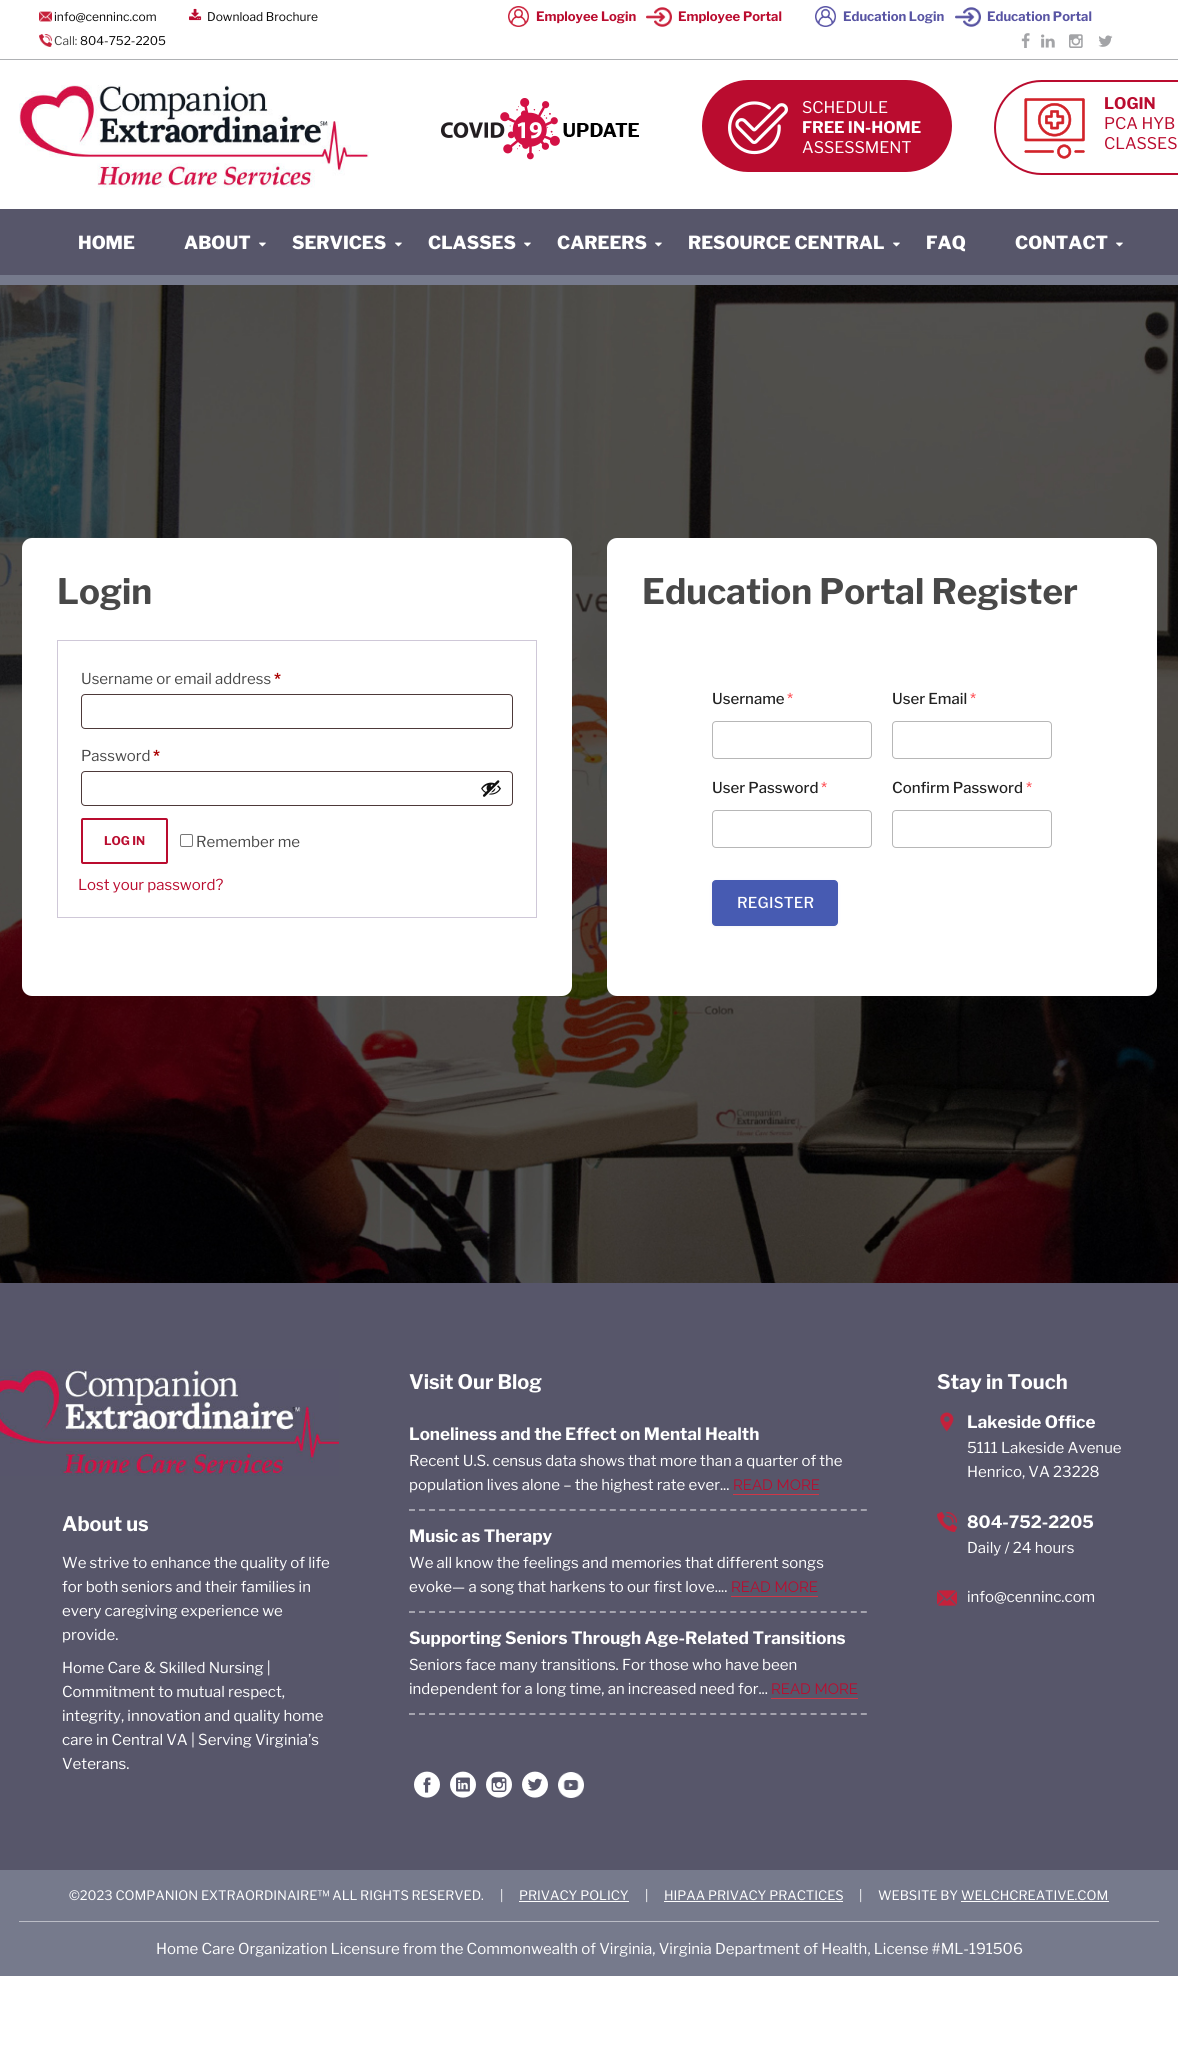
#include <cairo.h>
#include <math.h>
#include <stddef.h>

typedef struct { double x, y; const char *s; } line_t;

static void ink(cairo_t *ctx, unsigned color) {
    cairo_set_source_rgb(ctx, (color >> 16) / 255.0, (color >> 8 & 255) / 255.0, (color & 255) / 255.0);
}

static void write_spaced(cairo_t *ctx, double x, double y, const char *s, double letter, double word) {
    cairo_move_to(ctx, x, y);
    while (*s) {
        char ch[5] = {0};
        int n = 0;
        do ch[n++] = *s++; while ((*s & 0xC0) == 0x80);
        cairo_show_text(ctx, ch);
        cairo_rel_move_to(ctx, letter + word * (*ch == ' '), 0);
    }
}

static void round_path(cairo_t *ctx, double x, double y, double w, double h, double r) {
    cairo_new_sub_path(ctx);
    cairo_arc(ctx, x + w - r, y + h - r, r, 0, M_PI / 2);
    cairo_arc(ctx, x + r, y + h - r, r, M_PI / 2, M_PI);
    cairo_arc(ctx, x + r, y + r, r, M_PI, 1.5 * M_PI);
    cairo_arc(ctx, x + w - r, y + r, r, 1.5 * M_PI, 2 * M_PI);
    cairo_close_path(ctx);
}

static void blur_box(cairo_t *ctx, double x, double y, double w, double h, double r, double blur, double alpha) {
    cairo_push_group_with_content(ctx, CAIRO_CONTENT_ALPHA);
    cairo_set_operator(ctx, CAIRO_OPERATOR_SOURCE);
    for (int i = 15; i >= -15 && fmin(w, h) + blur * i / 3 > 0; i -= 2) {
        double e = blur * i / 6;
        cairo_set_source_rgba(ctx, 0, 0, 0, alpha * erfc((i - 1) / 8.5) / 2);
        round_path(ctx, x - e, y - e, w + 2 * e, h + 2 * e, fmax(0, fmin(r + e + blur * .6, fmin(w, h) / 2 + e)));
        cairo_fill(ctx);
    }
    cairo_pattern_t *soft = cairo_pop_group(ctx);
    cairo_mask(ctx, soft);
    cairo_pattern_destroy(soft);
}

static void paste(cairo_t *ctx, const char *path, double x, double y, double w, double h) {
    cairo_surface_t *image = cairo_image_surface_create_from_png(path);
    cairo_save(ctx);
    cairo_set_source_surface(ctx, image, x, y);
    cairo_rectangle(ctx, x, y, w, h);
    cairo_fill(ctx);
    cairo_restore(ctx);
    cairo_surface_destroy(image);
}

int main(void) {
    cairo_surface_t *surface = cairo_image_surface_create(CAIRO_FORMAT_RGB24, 1178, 2064);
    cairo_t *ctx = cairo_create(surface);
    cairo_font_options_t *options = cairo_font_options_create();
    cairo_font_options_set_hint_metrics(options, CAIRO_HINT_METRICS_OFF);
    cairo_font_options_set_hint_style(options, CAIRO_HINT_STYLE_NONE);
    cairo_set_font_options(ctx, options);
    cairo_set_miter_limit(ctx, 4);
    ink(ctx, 0xFFFFFF);
    cairo_paint(ctx);
    ink(ctx, 0xAFB1B4);
    cairo_rectangle(ctx, 0, 59, 1178, 1);
    cairo_fill(ctx);
    paste(ctx, "media/1.png", 39, 11, 13, 11);
    cairo_select_font_face(ctx, "Libre Franklin", CAIRO_FONT_SLANT_NORMAL, CAIRO_FONT_WEIGHT_NORMAL);
    cairo_set_font_size(ctx, 12);
    ink(ctx, 0x080808);
    cairo_move_to(ctx, 54, 21);
    cairo_show_text(ctx, "info@cenninc.com");
    paste(ctx, "media/2.png", 189, 8, 13, 13);
    cairo_move_to(ctx, 207, 21);
    cairo_show_text(ctx, "Download Brochure");
    paste(ctx, "media/3.png", 39, 34, 13, 13);
    ink(ctx, 0x484848);
    cairo_move_to(ctx, 54, 45);
    cairo_show_text(ctx, "Call:");
    ink(ctx, 0x080808);
    cairo_move_to(ctx, 80, 45);
    cairo_show_text(ctx, "804-752-2205");
    paste(ctx, "media/4.png", 508, 6, 21, 21);
    cairo_select_font_face(ctx, "Libre Franklin", CAIRO_FONT_SLANT_NORMAL, CAIRO_FONT_WEIGHT_BOLD);
    cairo_set_font_size(ctx, 13);
    ink(ctx, 0xBA0C2F);
    cairo_move_to(ctx, 536, 21);
    cairo_show_text(ctx, "Employee Login");
    paste(ctx, "media/5.png", 646, 7, 26, 20);
    cairo_move_to(ctx, 678, 21);
    cairo_show_text(ctx, "Employee Portal");
    paste(ctx, "media/6.png", 815, 6, 21, 21);
    ink(ctx, 0x5854A3);
    cairo_move_to(ctx, 843, 21);
    cairo_show_text(ctx, "Education Login");
    paste(ctx, "media/7.png", 955, 7, 26, 20);
    cairo_move_to(ctx, 987, 21);
    cairo_show_text(ctx, "Education Portal");
    paste(ctx, "media/8.png", 1021, 33, 9, 15);
    paste(ctx, "media/9.png", 1041, 34, 14, 14);
    paste(ctx, "media/10.png", 1069, 34, 14, 14);
    paste(ctx, "media/11.png", 1098, 35, 15, 12);
    paste(ctx, "media/12.png", 19, 85, 350, 103);
    paste(ctx, "media/13.png", 441, 98, 198, 62);
    ink(ctx, 0xBA0C2F);
    round_path(ctx, 702, 80, 250, 92, 46);
    cairo_fill(ctx);
    paste(ctx, "media/14.png", 728, 101, 60, 54);
    cairo_select_font_face(ctx, "Libre Franklin", CAIRO_FONT_SLANT_NORMAL, CAIRO_FONT_WEIGHT_NORMAL);
    cairo_set_font_size(ctx, 16);
    ink(ctx, 0xFFFFFF);
    cairo_move_to(ctx, 802, 113);
    cairo_show_text(ctx, "SCHEDULE");
    cairo_select_font_face(ctx, "Libre Franklin", CAIRO_FONT_SLANT_NORMAL, CAIRO_FONT_WEIGHT_BOLD);
    cairo_move_to(ctx, 802, 133);
    cairo_show_text(ctx, "FREE IN-HOME");
    cairo_select_font_face(ctx, "Libre Franklin", CAIRO_FONT_SLANT_NORMAL, CAIRO_FONT_WEIGHT_NORMAL);
    cairo_move_to(ctx, 802, 153);
    cairo_show_text(ctx, "ASSESSMENT");
    round_path(ctx, 995, 81, 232, 93, 46.5);
    ink(ctx, 0xBA0C2F);
    cairo_stroke(ctx);
    paste(ctx, "media/15.png", 1024, 98, 61, 61);
    cairo_select_font_face(ctx, "Libre Franklin", CAIRO_FONT_SLANT_NORMAL, CAIRO_FONT_WEIGHT_BOLD);
    cairo_move_to(ctx, 1104, 109);
    cairo_show_text(ctx, "LOGIN");
    cairo_select_font_face(ctx, "Libre Franklin", CAIRO_FONT_SLANT_NORMAL, CAIRO_FONT_WEIGHT_NORMAL);
    cairo_move_to(ctx, 1104, 129);
    cairo_show_text(ctx, "PCA HYB");
    cairo_move_to(ctx, 1104, 149);
    cairo_show_text(ctx, "CLASSES");
    ink(ctx, 0x57566A);
    cairo_rectangle(ctx, 0, 209, 1178, 66);
    cairo_fill(ctx);
    ink(ctx, 0x767A8C);
    cairo_rectangle(ctx, 0, 275, 1178, 10);
    cairo_fill(ctx);
    cairo_select_font_face(ctx, "Libre Franklin ExtraBold", CAIRO_FONT_SLANT_NORMAL, CAIRO_FONT_WEIGHT_NORMAL);
    cairo_set_font_size(ctx, 18);
    ink(ctx, 0xFFFFFF);
    cairo_move_to(ctx, 78, 249);
    cairo_show_text(ctx, "HOME");
    cairo_move_to(ctx, 184, 249);
    cairo_show_text(ctx, "ABOUT");
    paste(ctx, "media/16.png", 259, 242, 7, 5);
    cairo_move_to(ctx, 292, 249);
    cairo_show_text(ctx, "SERVICES");
    paste(ctx, "media/16.png", 395, 242, 7, 5);
    cairo_move_to(ctx, 428, 249);
    cairo_show_text(ctx, "CLASSES");
    paste(ctx, "media/16.png", 524, 242, 7, 5);
    cairo_move_to(ctx, 557, 249);
    cairo_show_text(ctx, "CAREERS");
    paste(ctx, "media/16.png", 655, 242, 7, 5);
    cairo_move_to(ctx, 688, 249);
    cairo_show_text(ctx, "RESOURCE CENTRAL");
    paste(ctx, "media/16.png", 893, 242, 7, 5);
    cairo_move_to(ctx, 926, 249);
    cairo_show_text(ctx, "FAQ");
    cairo_move_to(ctx, 1015, 249);
    cairo_show_text(ctx, "CONTACT");
    paste(ctx, "media/16.png", 1116, 242, 7, 5);
    paste(ctx, "media/17.png", 0, 285, 1178, 998);
    round_path(ctx, 22, 538, 550, 458, 10);
    cairo_fill(ctx);
    cairo_select_font_face(ctx, "Libre Franklin", CAIRO_FONT_SLANT_NORMAL, CAIRO_FONT_WEIGHT_BOLD);
    cairo_set_font_size(ctx, 35);
    ink(ctx, 0x484848);
    cairo_move_to(ctx, 57, 604);
    cairo_show_text(ctx, "Login");
    cairo_rectangle(ctx, 57.5, 640.5, 479, 277);
    ink(ctx, 0xCFC8D8);
    cairo_set_line_width(ctx, 1);
    cairo_stroke(ctx);
    cairo_select_font_face(ctx, "Libre Franklin", CAIRO_FONT_SLANT_NORMAL, CAIRO_FONT_WEIGHT_NORMAL);
    cairo_set_font_size(ctx, 15);
    ink(ctx, 0x484848);
    cairo_move_to(ctx, 81, 684);
    cairo_show_text(ctx, "Username or email address");
    cairo_select_font_face(ctx, "Libre Franklin", CAIRO_FONT_SLANT_NORMAL, CAIRO_FONT_WEIGHT_BOLD);
    ink(ctx, 0xAA0000);
    cairo_move_to(ctx, 274, 684);
    cairo_show_text(ctx, "*");
    round_path(ctx, 81.5, 694.5, 431, 34, 3.5);
    ink(ctx, 0x4D3939);
    cairo_stroke(ctx);
    cairo_select_font_face(ctx, "Libre Franklin", CAIRO_FONT_SLANT_NORMAL, CAIRO_FONT_WEIGHT_NORMAL);
    ink(ctx, 0x484848);
    cairo_move_to(ctx, 81, 761);
    cairo_show_text(ctx, "Password");
    cairo_select_font_face(ctx, "Libre Franklin", CAIRO_FONT_SLANT_NORMAL, CAIRO_FONT_WEIGHT_BOLD);
    ink(ctx, 0xAA0000);
    cairo_move_to(ctx, 153, 761);
    cairo_show_text(ctx, "*");
    round_path(ctx, 81.5, 771.5, 431, 34, 3.5);
    ink(ctx, 0x4D3939);
    cairo_stroke(ctx);
    paste(ctx, "media/18.png", 481, 780, 20, 17);
    round_path(ctx, 82, 819, 85, 44, 1);
    ink(ctx, 0xBA0C2F);
    cairo_set_line_width(ctx, 2);
    cairo_stroke(ctx);
    cairo_set_font_size(ctx, 12);
    cairo_move_to(ctx, 104, 845);
    cairo_show_text(ctx, "LOG IN");
    round_path(ctx, 180.5, 834.5, 12, 12, 1.5);
    ink(ctx, 0x767676);
    cairo_set_line_width(ctx, 1);
    cairo_stroke(ctx);
    cairo_select_font_face(ctx, "Libre Franklin", CAIRO_FONT_SLANT_NORMAL, CAIRO_FONT_WEIGHT_NORMAL);
    cairo_set_font_size(ctx, 15);
    ink(ctx, 0x484848);
    cairo_move_to(ctx, 196, 847);
    cairo_show_text(ctx, "Remember me");
    ink(ctx, 0xBA0C2F);
    cairo_move_to(ctx, 78, 890);
    cairo_show_text(ctx, "Lost your password?");
    ink(ctx, 0xFFFFFF);
    round_path(ctx, 607, 538, 550, 458, 10);
    cairo_fill(ctx);
    cairo_select_font_face(ctx, "Libre Franklin", CAIRO_FONT_SLANT_NORMAL, CAIRO_FONT_WEIGHT_BOLD);
    cairo_set_font_size(ctx, 35);
    ink(ctx, 0x484848);
    cairo_move_to(ctx, 642, 604);
    cairo_show_text(ctx, "Education Portal Register");
    cairo_select_font_face(ctx, "Libre Franklin Medium", CAIRO_FONT_SLANT_NORMAL, CAIRO_FONT_WEIGHT_NORMAL);
    cairo_set_font_size(ctx, 15);
    ink(ctx, 0x222222);
    cairo_move_to(ctx, 712, 704);
    cairo_show_text(ctx, "Username");
    ink(ctx, 0xFF4F55);
    cairo_move_to(ctx, 787, 704);
    cairo_show_text(ctx, "*");
    round_path(ctx, 712.5, 721.5, 159, 37, 3.5);
    ink(ctx, 0xB7B7B7);
    cairo_stroke(ctx);
    ink(ctx, 0x222222);
    cairo_move_to(ctx, 712, 793);
    cairo_show_text(ctx, "User Password");
    ink(ctx, 0xFF4F55);
    cairo_move_to(ctx, 821, 793);
    cairo_show_text(ctx, "*");
    round_path(ctx, 712.5, 810.5, 159, 37, 3.5);
    ink(ctx, 0xB7B7B7);
    cairo_stroke(ctx);
    ink(ctx, 0x222222);
    cairo_move_to(ctx, 892, 704);
    cairo_show_text(ctx, "User Email");
    ink(ctx, 0xFF4F55);
    cairo_move_to(ctx, 970, 704);
    cairo_show_text(ctx, "*");
    round_path(ctx, 892.5, 721.5, 159, 37, 3.5);
    ink(ctx, 0xB7B7B7);
    cairo_stroke(ctx);
    ink(ctx, 0x222222);
    cairo_move_to(ctx, 892, 793);
    cairo_show_text(ctx, "Confirm Password");
    ink(ctx, 0xFF4F55);
    cairo_move_to(ctx, 1026, 793);
    cairo_show_text(ctx, "*");
    round_path(ctx, 892.5, 810.5, 159, 37, 3.5);
    ink(ctx, 0xB7B7B7);
    cairo_stroke(ctx);
    ink(ctx, 0xB6BBCF);
    blur_box(ctx, 712, 881, 126, 46, 4, 1.5, 0.15);
    ink(ctx, 0x475BB2);
    round_path(ctx, 712.5, 880.5, 125, 45, 3.5);
    cairo_fill_preserve(ctx);
    cairo_stroke(ctx);
    ink(ctx, 0xFFFFFF);
    write_spaced(ctx, 737, 908, "REGISTER", 0.25, 0);
    ink(ctx, 0x57566A);
    cairo_rectangle(ctx, 0, 1283, 1178, 587);
    cairo_fill(ctx);
    cairo_select_font_face(ctx, "Libre Franklin", CAIRO_FONT_SLANT_NORMAL, CAIRO_FONT_WEIGHT_BOLD);
    cairo_set_font_size(ctx, 20);
    ink(ctx, 0xFFFFFF);
    cairo_move_to(ctx, 409, 1389);
    cairo_show_text(ctx, "Visit Our Blog");
    cairo_new_path(ctx);
    cairo_move_to(ctx, 409, 1510);
    cairo_line_to(ctx, 867, 1510);
    ink(ctx, 0xA4A3AE);
    cairo_set_line_width(ctx, 2);
    cairo_set_dash(ctx, (double[]){6, 4.04}, 2, 0);
    cairo_stroke(ctx);
    cairo_set_font_size(ctx, 17);
    ink(ctx, 0xFFFFFF);
    cairo_move_to(ctx, 409, 1440);
    cairo_show_text(ctx, "Loneliness and the Effect on Mental Health");
    cairo_select_font_face(ctx, "Libre Franklin", CAIRO_FONT_SLANT_NORMAL, CAIRO_FONT_WEIGHT_NORMAL);
    cairo_set_font_size(ctx, 15);
    cairo_move_to(ctx, 409, 1466);
    cairo_show_text(ctx, "Recent U.S. census data shows that more than a quarter of the");
    cairo_move_to(ctx, 409, 1490);
    cairo_show_text(ctx, "population lives alone – the highest rate ever...");
    cairo_select_font_face(ctx, "Raleway", CAIRO_FONT_SLANT_NORMAL, CAIRO_FONT_WEIGHT_NORMAL);
    ink(ctx, 0xBA0C2F);
    cairo_move_to(ctx, 733, 1490);
    cairo_show_text(ctx, "READ MORE");
    ink(ctx, 0xD03647);
    cairo_rectangle(ctx, 733, 1494, 86, 1);
    cairo_fill(ctx);
    cairo_new_path(ctx);
    cairo_move_to(ctx, 409, 1612);
    cairo_line_to(ctx, 867, 1612);
    ink(ctx, 0xA4A3AE);
    cairo_stroke(ctx);
    cairo_select_font_face(ctx, "Libre Franklin", CAIRO_FONT_SLANT_NORMAL, CAIRO_FONT_WEIGHT_BOLD);
    cairo_set_font_size(ctx, 17);
    ink(ctx, 0xFFFFFF);
    cairo_move_to(ctx, 409, 1542);
    cairo_show_text(ctx, "Music as Therapy");
    cairo_select_font_face(ctx, "Libre Franklin", CAIRO_FONT_SLANT_NORMAL, CAIRO_FONT_WEIGHT_NORMAL);
    cairo_set_font_size(ctx, 15);
    cairo_move_to(ctx, 409, 1568);
    cairo_show_text(ctx, "We all know the feelings and memories that different songs");
    cairo_move_to(ctx, 409, 1592);
    cairo_show_text(ctx, "evoke— a song that harkens to our first love....");
    cairo_select_font_face(ctx, "Raleway", CAIRO_FONT_SLANT_NORMAL, CAIRO_FONT_WEIGHT_NORMAL);
    ink(ctx, 0xBA0C2F);
    cairo_move_to(ctx, 731, 1592);
    cairo_show_text(ctx, "READ MORE");
    ink(ctx, 0xD03647);
    cairo_rectangle(ctx, 731, 1596, 87, 1);
    cairo_fill(ctx);
    cairo_new_path(ctx);
    cairo_move_to(ctx, 409, 1714);
    cairo_line_to(ctx, 867, 1714);
    ink(ctx, 0xA4A3AE);
    cairo_stroke(ctx);
    cairo_select_font_face(ctx, "Libre Franklin", CAIRO_FONT_SLANT_NORMAL, CAIRO_FONT_WEIGHT_BOLD);
    cairo_set_font_size(ctx, 17);
    ink(ctx, 0xFFFFFF);
    cairo_move_to(ctx, 409, 1644);
    cairo_show_text(ctx, "Supporting Seniors Through Age-Related Transitions");
    cairo_select_font_face(ctx, "Libre Franklin", CAIRO_FONT_SLANT_NORMAL, CAIRO_FONT_WEIGHT_NORMAL);
    cairo_set_font_size(ctx, 15);
    cairo_move_to(ctx, 409, 1670);
    cairo_show_text(ctx, "Seniors face many transitions. For those who have been");
    cairo_move_to(ctx, 409, 1694);
    cairo_show_text(ctx, "independent for a long time, an increased need for...");
    cairo_select_font_face(ctx, "Raleway", CAIRO_FONT_SLANT_NORMAL, CAIRO_FONT_WEIGHT_NORMAL);
    ink(ctx, 0xBA0C2F);
    cairo_move_to(ctx, 771, 1694);
    cairo_show_text(ctx, "READ MORE");
    ink(ctx, 0xD03647);
    cairo_rectangle(ctx, 771, 1698, 87, 1);
    cairo_fill(ctx);
    paste(ctx, "media/19.png", 414, 1771, 26, 27);
    paste(ctx, "media/20.png", 450, 1771, 26, 27);
    paste(ctx, "media/21.png", 486, 1771, 26, 27);
    paste(ctx, "media/22.png", 522, 1771, 26, 27);
    paste(ctx, "media/23.png", 558, 1772, 26, 26);
    cairo_select_font_face(ctx, "Libre Franklin", CAIRO_FONT_SLANT_NORMAL, CAIRO_FONT_WEIGHT_BOLD);
    cairo_set_font_size(ctx, 20);
    ink(ctx, 0xFFFFFF);
    cairo_move_to(ctx, 937, 1389);
    cairo_show_text(ctx, "Stay in Touch");
    paste(ctx, "media/24.png", 940, 1412, 14, 20);
    cairo_set_font_size(ctx, 17);
    cairo_move_to(ctx, 967, 1428);
    cairo_show_text(ctx, "Lakeside Office");
    cairo_select_font_face(ctx, "Libre Franklin", CAIRO_FONT_SLANT_NORMAL, CAIRO_FONT_WEIGHT_NORMAL);
    cairo_set_font_size(ctx, 15);
    cairo_move_to(ctx, 967, 1453);
    cairo_show_text(ctx, "5111 Lakeside Avenue");
    cairo_move_to(ctx, 967, 1477);
    cairo_show_text(ctx, "Henrico, VA 23228");
    paste(ctx, "media/25.png", 937, 1512, 20, 20);
    cairo_select_font_face(ctx, "Libre Franklin", CAIRO_FONT_SLANT_NORMAL, CAIRO_FONT_WEIGHT_BOLD);
    cairo_set_font_size(ctx, 17);
    cairo_move_to(ctx, 967, 1528);
    cairo_show_text(ctx, "804-752-2205");
    cairo_select_font_face(ctx, "Libre Franklin", CAIRO_FONT_SLANT_NORMAL, CAIRO_FONT_WEIGHT_NORMAL);
    cairo_set_font_size(ctx, 15);
    cairo_move_to(ctx, 967, 1553);
    cairo_show_text(ctx, "Daily / 24 hours");
    paste(ctx, "media/26.png", 937, 1590, 20, 16);
    cairo_move_to(ctx, 967, 1602);
    cairo_show_text(ctx, "info@cenninc.com");
    paste(ctx, "media/27.png", 0, 1369, 339, 107);
    cairo_select_font_face(ctx, "Libre Franklin", CAIRO_FONT_SLANT_NORMAL, CAIRO_FONT_WEIGHT_BOLD);
    cairo_set_font_size(ctx, 20);
    cairo_move_to(ctx, 62, 1531);
    cairo_show_text(ctx, "About us");
    cairo_select_font_face(ctx, "Libre Franklin", CAIRO_FONT_SLANT_NORMAL, CAIRO_FONT_WEIGHT_NORMAL);
    cairo_set_font_size(ctx, 15);
    {
        static const line_t items[] = {
            {62, 1568, "We strive to enhance the quality of life"},
            {62, 1592, "for both seniors and their families in"},
            {62, 1616, "every caregiving experience we"},
            {62, 1640, "provide."},
            {62, 1673, "Home Care & Skilled Nursing |"},
            {62, 1697, "Commitment to mutual respect,"},
            {62, 1721, "integrity, innovation and quality home"},
            {62, 1745, "care in Central VA | Serving Virginia’s"},
            {62, 1769, "Veterans."},
        };
        for (size_t i = 0; i < sizeof items / sizeof *items; i++) {
            cairo_move_to(ctx, items[i].x, items[i].y);
            cairo_show_text(ctx, items[i].s);
        }
    }
    ink(ctx, 0x767A8C);
    cairo_rectangle(ctx, 0, 1870, 1178, 106);
    cairo_fill(ctx);
    cairo_set_font_size(ctx, 13);
    ink(ctx, 0xFFFFFF);
    {
        static const line_t items[] = {
            {69, 1900, "©2023 COMPANION EXTRAORDINAIRE™ ALL RIGHTS RESERVED."},
            {500, 1900, "|"},
            {519, 1900, "PRIVACY POLICY"},
        };
        for (size_t i = 0; i < sizeof items / sizeof *items; i++) {
            cairo_move_to(ctx, items[i].x, items[i].y);
            cairo_show_text(ctx, items[i].s);
        }
    }
    cairo_rectangle(ctx, 519, 1901, 110, 1);
    cairo_fill(ctx);
    cairo_move_to(ctx, 645, 1900);
    cairo_show_text(ctx, "|");
    cairo_move_to(ctx, 664, 1900);
    cairo_show_text(ctx, "HIPAA PRIVACY PRACTICES");
    cairo_rectangle(ctx, 664, 1901, 179, 1);
    cairo_fill(ctx);
    cairo_move_to(ctx, 859, 1900);
    cairo_show_text(ctx, "|");
    cairo_move_to(ctx, 878, 1900);
    cairo_show_text(ctx, "WEBSITE BY WELCHCREATIVE.COM");
    cairo_rectangle(ctx, 961, 1901, 148, 1);
    cairo_fill(ctx);
    ink(ctx, 0xBBBDC6);
    cairo_rectangle(ctx, 19, 1921, 1140, 1);
    cairo_fill(ctx);
    cairo_set_font_size(ctx, 15);
    ink(ctx, 0xFFFFFF);
    cairo_move_to(ctx, 156, 1954);
    cairo_show_text(ctx, "Home Care Organization Licensure from the Commonwealth of Virginia, Virginia Department of Health, License #ML-191506");
    cairo_surface_write_to_png(surface, "image.png");
    cairo_font_options_destroy(options);
    cairo_destroy(ctx);
    cairo_surface_destroy(surface);
    return 0;
}
